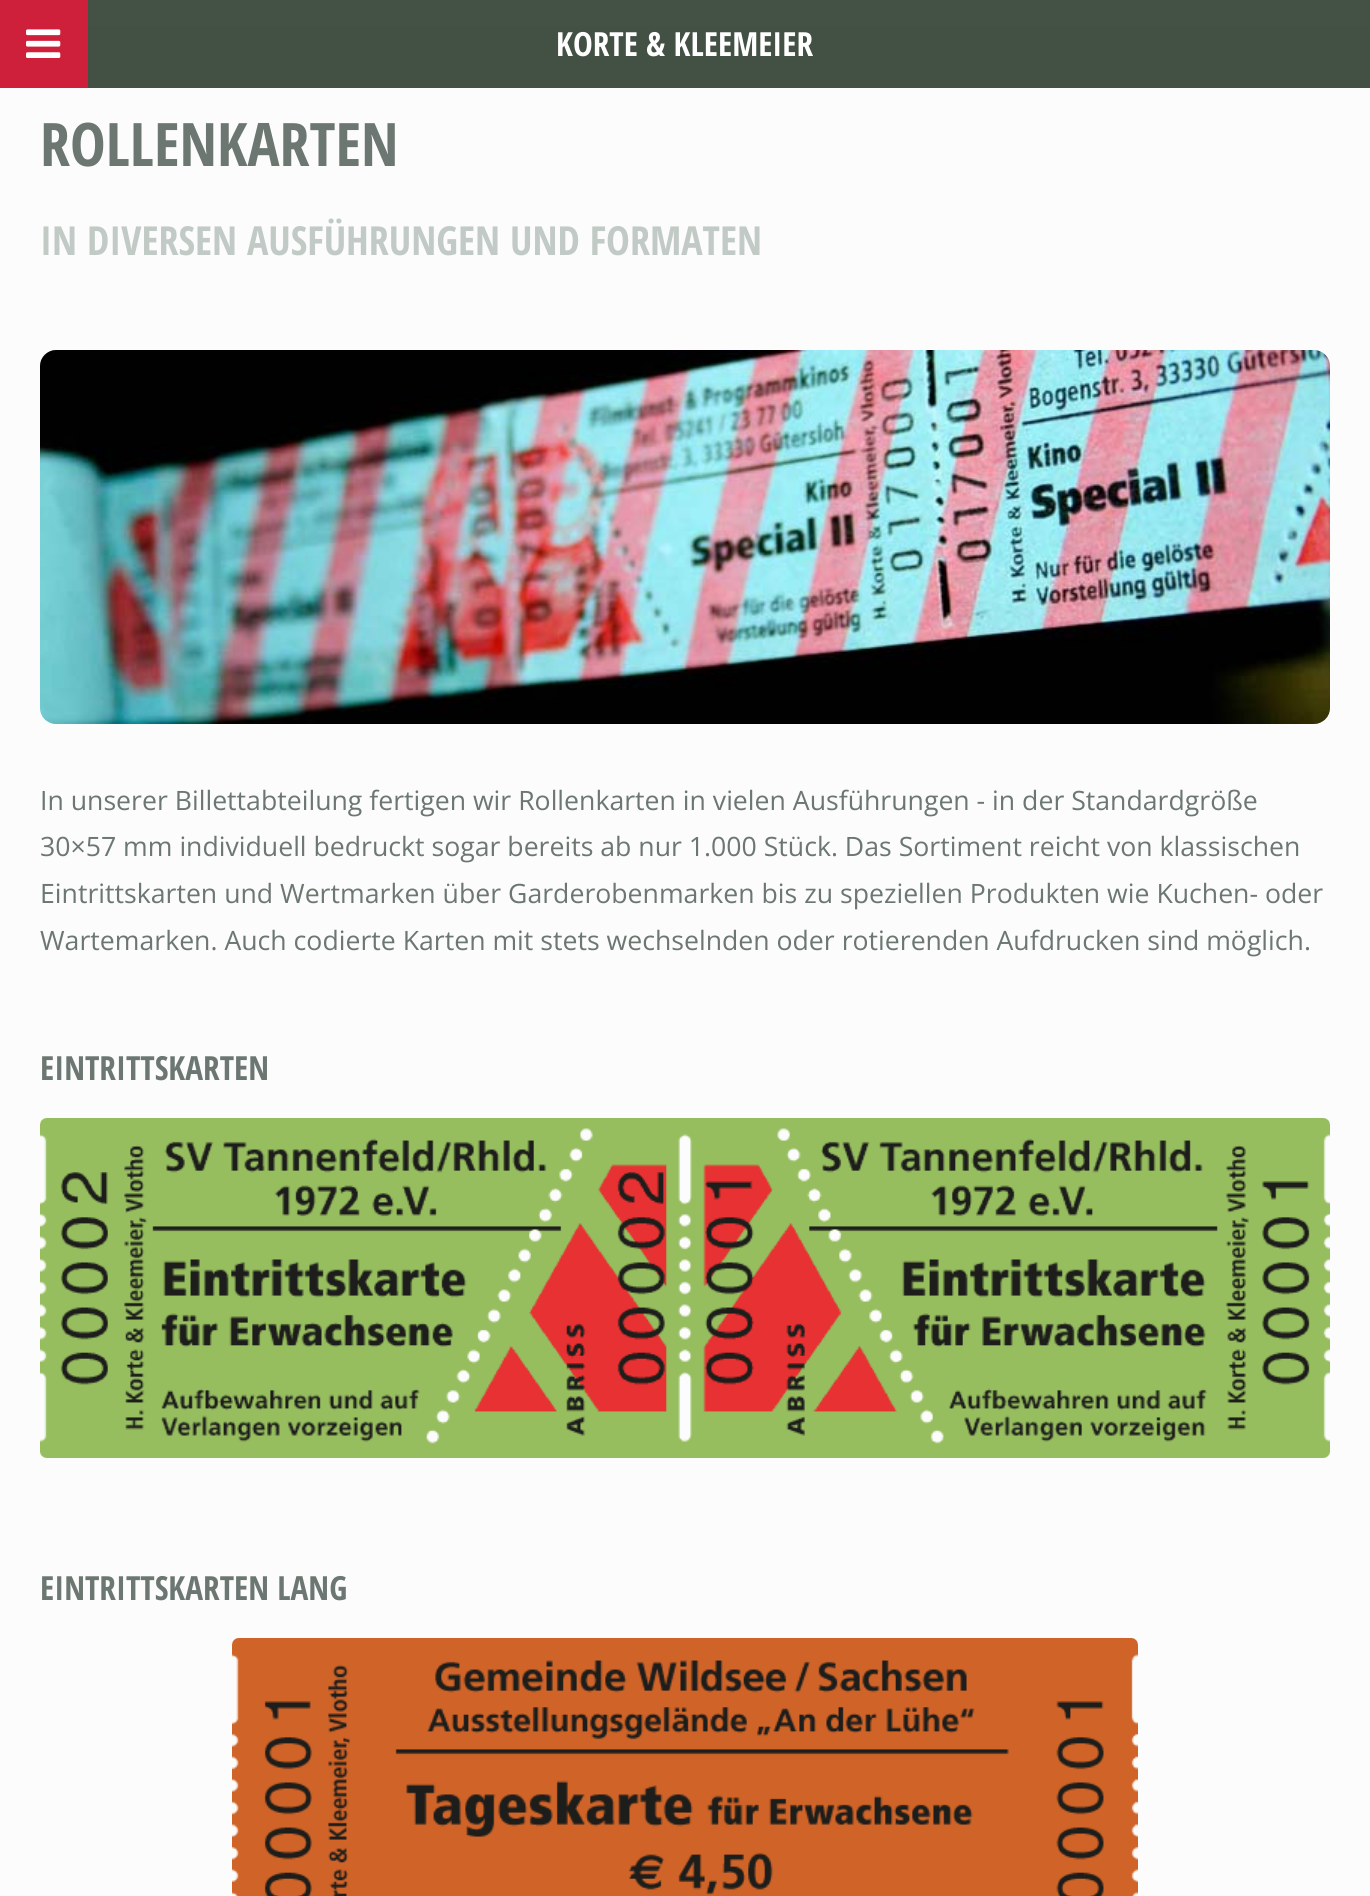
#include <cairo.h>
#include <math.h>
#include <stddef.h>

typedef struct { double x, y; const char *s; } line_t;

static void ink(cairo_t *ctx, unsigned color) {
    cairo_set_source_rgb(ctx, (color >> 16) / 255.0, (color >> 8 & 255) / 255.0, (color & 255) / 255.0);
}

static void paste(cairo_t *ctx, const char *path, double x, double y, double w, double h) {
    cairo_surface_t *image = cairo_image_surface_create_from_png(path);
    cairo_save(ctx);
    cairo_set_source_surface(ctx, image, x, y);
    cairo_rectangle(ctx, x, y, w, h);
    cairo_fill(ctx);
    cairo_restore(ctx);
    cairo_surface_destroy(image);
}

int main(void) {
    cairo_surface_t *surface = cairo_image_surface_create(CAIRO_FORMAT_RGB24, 1370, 1896);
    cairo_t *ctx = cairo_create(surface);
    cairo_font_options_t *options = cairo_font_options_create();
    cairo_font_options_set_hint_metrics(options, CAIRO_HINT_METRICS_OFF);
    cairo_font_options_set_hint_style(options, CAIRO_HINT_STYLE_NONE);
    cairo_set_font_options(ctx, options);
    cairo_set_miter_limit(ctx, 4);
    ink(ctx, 0xFCFCFC);
    cairo_paint(ctx);
    ink(ctx, 0xCE203A);
    cairo_rectangle(ctx, 0, 0, 88, 88);
    cairo_fill(ctx);
    paste(ctx, "media/1.png", 26, 29, 35, 29);
    ink(ctx, 0x435145);
    cairo_rectangle(ctx, 88, 26, 1282, 62);
    cairo_fill(ctx);
    cairo_select_font_face(ctx, "Open Sans Condensed", CAIRO_FONT_SLANT_NORMAL, CAIRO_FONT_WEIGHT_BOLD);
    cairo_set_font_size(ctx, 33.25);
    ink(ctx, 0xFFFFFF);
    cairo_move_to(ctx, 556, 56);
    cairo_show_text(ctx, "KORTE & KLEEMEIER");
    ink(ctx, 0x445145);
    cairo_rectangle(ctx, 88, 0, 1282, 26);
    cairo_fill(ctx);
    cairo_set_font_size(ctx, 60);
    ink(ctx, 0x6B7770);
    cairo_move_to(ctx, 40, 166);
    cairo_show_text(ctx, "ROLLENKARTEN");
    cairo_set_font_size(ctx, 40);
    ink(ctx, 0xC1CAC5);
    cairo_move_to(ctx, 40, 255);
    cairo_show_text(ctx, "IN DIVERSEN AUSFÜHRUNGEN UND FORMATEN");
    paste(ctx, "media/2.png", 40, 350, 1290, 374);
    cairo_select_font_face(ctx, "Open Sans", CAIRO_FONT_SLANT_NORMAL, CAIRO_FONT_WEIGHT_NORMAL);
    cairo_set_font_size(ctx, 26.65);
    ink(ctx, 0x6B7770);
    {
        static const line_t items[] = {
            {40, 810, "In unserer Billettabteilung fertigen wir Rollenkarten in vielen Ausführungen - in der Standardgröße"},
            {40, 856, "30×57 mm individuell bedruckt sogar bereits ab nur 1.000 Stück. Das Sortiment reicht von klassischen"},
            {40, 903, "Eintrittskarten und Wertmarken über Garderobenmarken bis zu speziellen Produkten wie Kuchen- oder"},
            {40, 950, "Wartemarken. Auch codierte Karten mit stets wechselnden oder rotierenden Aufdrucken sind möglich."},
        };
        for (size_t i = 0; i < sizeof items / sizeof *items; i++) {
            cairo_move_to(ctx, items[i].x, items[i].y);
            cairo_show_text(ctx, items[i].s);
        }
    }
    cairo_select_font_face(ctx, "Open Sans Condensed", CAIRO_FONT_SLANT_NORMAL, CAIRO_FONT_WEIGHT_BOLD);
    cairo_set_font_size(ctx, 33.25);
    cairo_move_to(ctx, 40, 1080);
    cairo_show_text(ctx, "EINTRITTSKARTEN");
    paste(ctx, "media/3.png", 40, 1118, 1290, 340);
    cairo_move_to(ctx, 40, 1600);
    cairo_show_text(ctx, "EINTRITTSKARTEN LANG");
    paste(ctx, "media/4.png", 232, 1638, 906, 258);
    cairo_surface_write_to_png(surface, "image.png");
    cairo_font_options_destroy(options);
    cairo_destroy(ctx);
    cairo_surface_destroy(surface);
    return 0;
}
